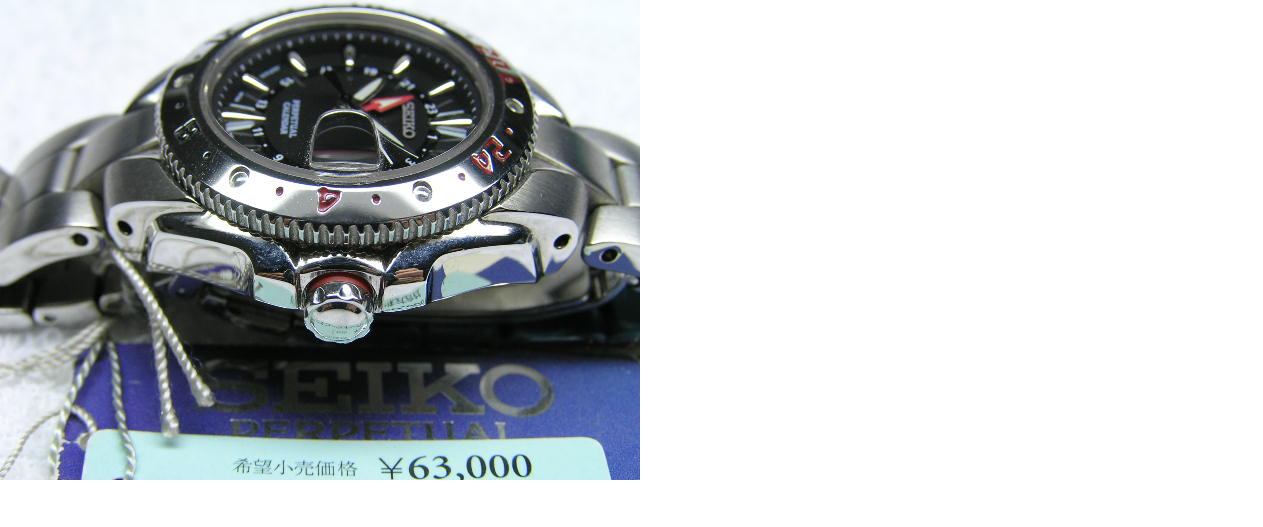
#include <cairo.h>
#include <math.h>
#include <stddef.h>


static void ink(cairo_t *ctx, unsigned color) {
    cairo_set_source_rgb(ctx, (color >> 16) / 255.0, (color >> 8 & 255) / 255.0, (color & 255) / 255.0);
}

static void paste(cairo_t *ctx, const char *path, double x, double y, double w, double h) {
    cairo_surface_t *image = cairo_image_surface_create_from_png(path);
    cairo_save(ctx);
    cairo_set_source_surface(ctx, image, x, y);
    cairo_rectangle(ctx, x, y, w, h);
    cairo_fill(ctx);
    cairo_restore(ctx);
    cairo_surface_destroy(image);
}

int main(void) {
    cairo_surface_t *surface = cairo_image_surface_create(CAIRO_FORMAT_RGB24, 1263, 527);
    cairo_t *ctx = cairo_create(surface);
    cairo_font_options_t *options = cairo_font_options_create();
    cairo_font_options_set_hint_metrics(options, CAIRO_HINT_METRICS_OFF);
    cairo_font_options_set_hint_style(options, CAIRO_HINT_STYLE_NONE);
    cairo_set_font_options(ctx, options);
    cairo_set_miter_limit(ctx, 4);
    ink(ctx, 0xFFFFFF);
    cairo_paint(ctx);
    paste(ctx, "media/1.png", 0, 0, 640, 480);
    cairo_surface_write_to_png(surface, "image.png");
    cairo_font_options_destroy(options);
    cairo_destroy(ctx);
    cairo_surface_destroy(surface);
    return 0;
}
